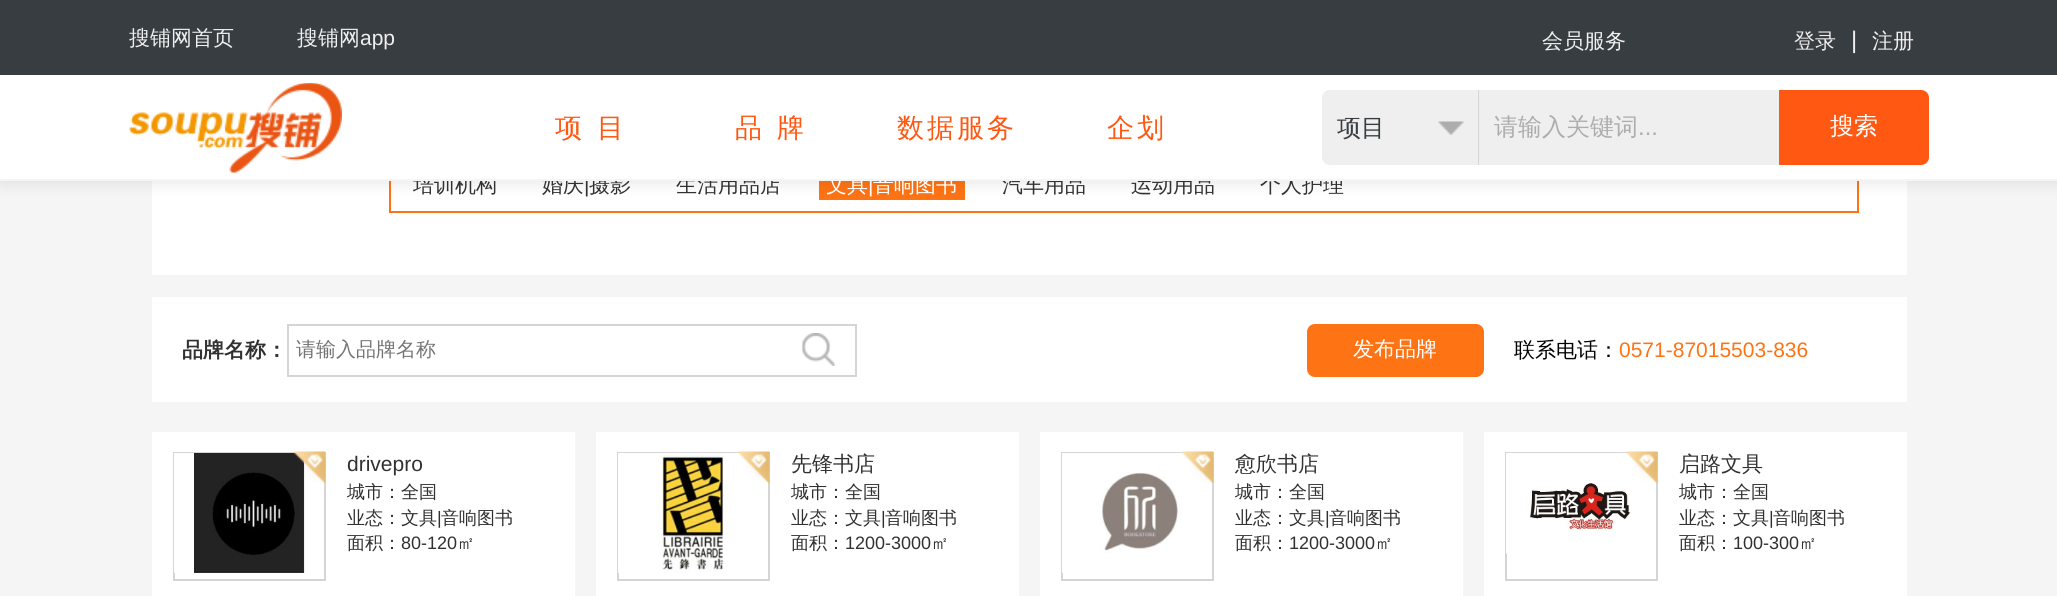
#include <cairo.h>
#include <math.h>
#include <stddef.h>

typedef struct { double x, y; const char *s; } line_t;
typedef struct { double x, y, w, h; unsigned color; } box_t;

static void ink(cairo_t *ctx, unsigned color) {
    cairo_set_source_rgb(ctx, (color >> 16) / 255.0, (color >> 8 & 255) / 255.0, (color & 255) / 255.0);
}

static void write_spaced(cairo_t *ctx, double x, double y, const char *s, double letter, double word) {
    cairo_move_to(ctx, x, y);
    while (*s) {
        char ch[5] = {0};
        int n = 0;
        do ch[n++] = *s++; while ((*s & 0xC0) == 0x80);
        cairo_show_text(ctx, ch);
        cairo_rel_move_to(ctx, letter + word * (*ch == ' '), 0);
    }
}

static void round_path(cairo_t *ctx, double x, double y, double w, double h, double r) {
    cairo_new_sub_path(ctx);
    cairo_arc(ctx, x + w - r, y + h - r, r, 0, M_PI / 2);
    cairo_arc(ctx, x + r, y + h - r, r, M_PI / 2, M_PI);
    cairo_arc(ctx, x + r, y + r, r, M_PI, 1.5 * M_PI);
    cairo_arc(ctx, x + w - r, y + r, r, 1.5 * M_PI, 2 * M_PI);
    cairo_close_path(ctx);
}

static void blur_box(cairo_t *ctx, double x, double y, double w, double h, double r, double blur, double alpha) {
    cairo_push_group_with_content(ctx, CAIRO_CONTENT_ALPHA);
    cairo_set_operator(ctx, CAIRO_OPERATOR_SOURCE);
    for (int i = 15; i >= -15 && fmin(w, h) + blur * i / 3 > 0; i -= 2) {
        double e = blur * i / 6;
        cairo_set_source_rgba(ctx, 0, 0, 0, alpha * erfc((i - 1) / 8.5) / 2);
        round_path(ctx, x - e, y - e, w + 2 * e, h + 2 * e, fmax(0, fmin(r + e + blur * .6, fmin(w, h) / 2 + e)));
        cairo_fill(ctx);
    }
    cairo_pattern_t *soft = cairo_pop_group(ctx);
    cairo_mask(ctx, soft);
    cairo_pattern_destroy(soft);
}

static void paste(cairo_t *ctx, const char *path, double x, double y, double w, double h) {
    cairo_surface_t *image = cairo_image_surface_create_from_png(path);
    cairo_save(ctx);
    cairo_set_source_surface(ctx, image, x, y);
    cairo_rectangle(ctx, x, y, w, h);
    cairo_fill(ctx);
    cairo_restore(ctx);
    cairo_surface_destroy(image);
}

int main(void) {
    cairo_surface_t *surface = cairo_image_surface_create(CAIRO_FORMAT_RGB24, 2057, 596);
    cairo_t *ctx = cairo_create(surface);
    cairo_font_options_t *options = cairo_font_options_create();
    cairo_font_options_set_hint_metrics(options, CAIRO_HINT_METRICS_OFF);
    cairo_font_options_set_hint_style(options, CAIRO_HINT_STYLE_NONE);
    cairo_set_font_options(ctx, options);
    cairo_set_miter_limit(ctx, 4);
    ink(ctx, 0xF5F5F5);
    cairo_paint(ctx);
    ink(ctx, 0xFFFFFF);
    cairo_rectangle(ctx, 152, 181, 1755, 94);
    cairo_fill(ctx);
    cairo_rectangle(ctx, 390, 154, 1468, 58);
    ink(ctx, 0xFE7314);
    cairo_stroke(ctx);
    cairo_rectangle(ctx, 819, 181, 146, 19);
    cairo_fill(ctx);
    ink(ctx, 0x000000);
    blur_box(ctx, 0, 78, 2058, 105, 0, 7.5, 0.1);
    ink(ctx, 0x373D41);
    cairo_rectangle(ctx, 0, 0, 2057, 75);
    cairo_fill(ctx);
    cairo_select_font_face(ctx, "WenQuanYi Zen Hei Medium", CAIRO_FONT_SLANT_NORMAL, CAIRO_FONT_WEIGHT_NORMAL);
    cairo_set_font_size(ctx, 21);
    ink(ctx, 0xEFEFEF);
    cairo_move_to(ctx, 129, 45);
    cairo_show_text(ctx, "搜铺网首页");
    cairo_move_to(ctx, 297, 45);
    cairo_show_text(ctx, "搜铺网");
    cairo_select_font_face(ctx, "Liberation Sans", CAIRO_FONT_SLANT_NORMAL, CAIRO_FONT_WEIGHT_NORMAL);
    cairo_move_to(ctx, 360, 45);
    cairo_show_text(ctx, "app");
    cairo_select_font_face(ctx, "WenQuanYi Zen Hei Medium", CAIRO_FONT_SLANT_NORMAL, CAIRO_FONT_WEIGHT_NORMAL);
    cairo_move_to(ctx, 1542, 48);
    cairo_show_text(ctx, "会员服务");
    cairo_move_to(ctx, 1794, 48);
    cairo_show_text(ctx, "登录");
    cairo_select_font_face(ctx, "Liberation Sans", CAIRO_FONT_SLANT_NORMAL, CAIRO_FONT_WEIGHT_NORMAL);
    cairo_set_font_size(ctx, 24);
    cairo_move_to(ctx, 1851, 48);
    cairo_show_text(ctx, "|");
    cairo_select_font_face(ctx, "WenQuanYi Zen Hei Medium", CAIRO_FONT_SLANT_NORMAL, CAIRO_FONT_WEIGHT_NORMAL);
    cairo_set_font_size(ctx, 21);
    cairo_move_to(ctx, 1872, 48);
    cairo_show_text(ctx, "注册");
    ink(ctx, 0x313131);
    cairo_move_to(ctx, 413, 192);
    cairo_show_text(ctx, "培训机构");
    cairo_move_to(ctx, 542, 192);
    cairo_show_text(ctx, "婚庆");
    cairo_select_font_face(ctx, "Liberation Sans", CAIRO_FONT_SLANT_NORMAL, CAIRO_FONT_WEIGHT_NORMAL);
    cairo_move_to(ctx, 584, 192);
    cairo_show_text(ctx, "|");
    cairo_select_font_face(ctx, "WenQuanYi Zen Hei Medium", CAIRO_FONT_SLANT_NORMAL, CAIRO_FONT_WEIGHT_NORMAL);
    {
        static const line_t items[] = {
            {589, 192, "摄影"},
            {676, 192, "生活用品店"},
            {1002, 192, "汽车用品"},
            {1131, 192, "运动用品"},
            {1260, 192, "个人护理"},
        };
        for (size_t i = 0; i < sizeof items / sizeof *items; i++) {
            cairo_move_to(ctx, items[i].x, items[i].y);
            cairo_show_text(ctx, items[i].s);
        }
    }
    ink(ctx, 0xFFFFFF);
    cairo_rectangle(ctx, 0, 75, 2057, 104);
    cairo_fill(ctx);
    cairo_move_to(ctx, 826, 192);
    cairo_show_text(ctx, "文具");
    cairo_select_font_face(ctx, "Liberation Sans", CAIRO_FONT_SLANT_NORMAL, CAIRO_FONT_WEIGHT_NORMAL);
    cairo_move_to(ctx, 868, 192);
    cairo_show_text(ctx, "|");
    cairo_select_font_face(ctx, "WenQuanYi Zen Hei Medium", CAIRO_FONT_SLANT_NORMAL, CAIRO_FONT_WEIGHT_NORMAL);
    cairo_move_to(ctx, 873, 192);
    cairo_show_text(ctx, "音响图书");
    ink(ctx, 0xF5F5F5);
    cairo_rectangle(ctx, 0, 179, 2057, 2);
    cairo_fill(ctx);
    paste(ctx, "media/1.png", 129, 83, 213, 90);
    cairo_set_font_size(ctx, 27);
    ink(ctx, 0xFF5812);
    write_spaced(ctx, 555, 137, "项目", 15, 0);
    write_spaced(ctx, 735, 137, "品牌", 15, 0);
    write_spaced(ctx, 897, 137, "数据服务", 3, 0);
    write_spaced(ctx, 1107, 137, "企划", 3, 0);
    ink(ctx, 0xEFEFEF);
    cairo_new_path(ctx);
    cairo_move_to(ctx, 1330, 90);
    cairo_line_to(ctx, 1479, 90);
    cairo_line_to(ctx, 1479, 165);
    cairo_line_to(ctx, 1330, 165);
    cairo_curve_to(ctx, 1325.5, 165, 1322, 161.5, 1322, 157);
    cairo_line_to(ctx, 1322, 98);
    cairo_curve_to(ctx, 1322, 93.5, 1325.5, 90, 1330, 90);
    cairo_close_path(ctx);
    cairo_fill(ctx);
    paste(ctx, "media/2.png", 1438, 121, 26, 14);
    ink(ctx, 0xD4D5D6);
    cairo_rectangle(ctx, 1478, 90, 1, 75);
    cairo_fill(ctx);
    cairo_set_font_size(ctx, 24);
    ink(ctx, 0x373D41);
    cairo_move_to(ctx, 1337, 136);
    cairo_show_text(ctx, "项目");
    ink(ctx, 0xEFEFEF);
    cairo_rectangle(ctx, 1479, 90, 300, 75);
    cairo_fill(ctx);
    ink(ctx, 0xADADAD);
    cairo_move_to(ctx, 1494, 135);
    cairo_show_text(ctx, "请输入关键词");
    cairo_select_font_face(ctx, "Liberation Sans", CAIRO_FONT_SLANT_NORMAL, CAIRO_FONT_WEIGHT_NORMAL);
    cairo_move_to(ctx, 1638, 135);
    cairo_show_text(ctx, "...");
    ink(ctx, 0xFF5812);
    cairo_new_path(ctx);
    cairo_move_to(ctx, 1779, 90);
    cairo_line_to(ctx, 1921, 90);
    cairo_curve_to(ctx, 1925.5, 90, 1929, 93.5, 1929, 98);
    cairo_line_to(ctx, 1929, 157);
    cairo_curve_to(ctx, 1929, 161.5, 1925.5, 165, 1921, 165);
    cairo_line_to(ctx, 1779, 165);
    cairo_close_path(ctx);
    cairo_fill(ctx);
    cairo_select_font_face(ctx, "WenQuanYi Zen Hei Medium", CAIRO_FONT_SLANT_NORMAL, CAIRO_FONT_WEIGHT_NORMAL);
    ink(ctx, 0xFFFFFF);
    cairo_move_to(ctx, 1830, 134);
    cairo_show_text(ctx, "搜索");
    cairo_rectangle(ctx, 152, 297, 1755, 105);
    cairo_fill(ctx);
    cairo_select_font_face(ctx, "WenQuanYi Zen Hei", CAIRO_FONT_SLANT_NORMAL, CAIRO_FONT_WEIGHT_BOLD);
    cairo_set_font_size(ctx, 21);
    ink(ctx, 0x313131);
    cairo_move_to(ctx, 182, 357);
    cairo_show_text(ctx, "品牌名称：");
    {
        static const box_t items[] = {
            {287, 324, 570, 2, 0xD5D5D5},
            {287, 375, 495, 2, 0xD5D5D5},
            {287, 324, 2, 53, 0xD5D5D5},
        };
        for (size_t i = 0; i < sizeof items / sizeof *items; i++) {
            ink(ctx, items[i].color);
            cairo_rectangle(ctx, items[i].x, items[i].y, items[i].w, items[i].h);
            cairo_fill(ctx);
        }
    }
    cairo_select_font_face(ctx, "WenQuanYi Zen Hei Medium", CAIRO_FONT_SLANT_NORMAL, CAIRO_FONT_WEIGHT_NORMAL);
    cairo_set_font_size(ctx, 20);
    ink(ctx, 0x757575);
    cairo_move_to(ctx, 296, 356);
    cairo_show_text(ctx, "请输入品牌名称");
    paste(ctx, "media/3.png", 802, 333, 34, 33);
    ink(ctx, 0xD5D5D5);
    cairo_rectangle(ctx, 855, 324, 2, 53);
    cairo_fill(ctx);
    cairo_rectangle(ctx, 782, 375, 75, 2);
    cairo_fill(ctx);
    ink(ctx, 0xFE7314);
    round_path(ctx, 1307, 324, 177, 53, 8);
    cairo_fill(ctx);
    cairo_set_font_size(ctx, 21);
    ink(ctx, 0xFFFFFF);
    cairo_move_to(ctx, 1353, 356);
    cairo_show_text(ctx, "发布品牌");
    ink(ctx, 0x000000);
    cairo_move_to(ctx, 1514, 357);
    cairo_show_text(ctx, "联系电话：");
    cairo_select_font_face(ctx, "Liberation Sans", CAIRO_FONT_SLANT_NORMAL, CAIRO_FONT_WEIGHT_NORMAL);
    ink(ctx, 0xFE7314);
    cairo_move_to(ctx, 1619, 357);
    cairo_show_text(ctx, "0571-87015503-836");
    ink(ctx, 0xFFFFFF);
    cairo_rectangle(ctx, 152, 432, 423, 164);
    cairo_fill(ctx);
    cairo_rectangle(ctx, 174, 453, 151, 127);
    ink(ctx, 0xD5D5D5);
    cairo_stroke(ctx);
    paste(ctx, "media/5.png", 174, 453, 150, 120);
    paste(ctx, "media/4.png", 293, 451, 33, 32);
    ink(ctx, 0x313131);
    cairo_move_to(ctx, 347, 471);
    cairo_show_text(ctx, "drivepro");
    cairo_select_font_face(ctx, "WenQuanYi Zen Hei Medium", CAIRO_FONT_SLANT_NORMAL, CAIRO_FONT_WEIGHT_NORMAL);
    cairo_set_font_size(ctx, 18);
    cairo_move_to(ctx, 347, 498);
    cairo_show_text(ctx, "城市：全国");
    cairo_move_to(ctx, 347, 524);
    cairo_show_text(ctx, "业态：文具");
    cairo_select_font_face(ctx, "Liberation Sans", CAIRO_FONT_SLANT_NORMAL, CAIRO_FONT_WEIGHT_NORMAL);
    cairo_move_to(ctx, 437, 524);
    cairo_show_text(ctx, "|");
    cairo_select_font_face(ctx, "WenQuanYi Zen Hei Medium", CAIRO_FONT_SLANT_NORMAL, CAIRO_FONT_WEIGHT_NORMAL);
    cairo_move_to(ctx, 441, 524);
    cairo_show_text(ctx, "音响图书");
    cairo_move_to(ctx, 347, 549);
    cairo_show_text(ctx, "面积：");
    cairo_select_font_face(ctx, "Liberation Sans", CAIRO_FONT_SLANT_NORMAL, CAIRO_FONT_WEIGHT_NORMAL);
    cairo_move_to(ctx, 401, 549);
    cairo_show_text(ctx, "80-120");
    cairo_select_font_face(ctx, "WenQuanYi Zen Hei Medium", CAIRO_FONT_SLANT_NORMAL, CAIRO_FONT_WEIGHT_NORMAL);
    cairo_move_to(ctx, 457, 549);
    cairo_show_text(ctx, "㎡");
    ink(ctx, 0xFFFFFF);
    cairo_rectangle(ctx, 596, 432, 423, 164);
    cairo_fill(ctx);
    cairo_rectangle(ctx, 618, 453, 151, 127);
    ink(ctx, 0xD5D5D5);
    cairo_stroke(ctx);
    paste(ctx, "media/7.png", 618, 453, 150, 120);
    paste(ctx, "media/6.png", 737, 451, 33, 32);
    cairo_set_font_size(ctx, 21);
    ink(ctx, 0x313131);
    cairo_move_to(ctx, 791, 471);
    cairo_show_text(ctx, "先锋书店");
    cairo_set_font_size(ctx, 18);
    cairo_move_to(ctx, 791, 498);
    cairo_show_text(ctx, "城市：全国");
    cairo_move_to(ctx, 791, 524);
    cairo_show_text(ctx, "业态：文具");
    cairo_select_font_face(ctx, "Liberation Sans", CAIRO_FONT_SLANT_NORMAL, CAIRO_FONT_WEIGHT_NORMAL);
    cairo_move_to(ctx, 881, 524);
    cairo_show_text(ctx, "|");
    cairo_select_font_face(ctx, "WenQuanYi Zen Hei Medium", CAIRO_FONT_SLANT_NORMAL, CAIRO_FONT_WEIGHT_NORMAL);
    cairo_move_to(ctx, 885, 524);
    cairo_show_text(ctx, "音响图书");
    cairo_move_to(ctx, 791, 549);
    cairo_show_text(ctx, "面积：");
    cairo_select_font_face(ctx, "Liberation Sans", CAIRO_FONT_SLANT_NORMAL, CAIRO_FONT_WEIGHT_NORMAL);
    cairo_move_to(ctx, 845, 549);
    cairo_show_text(ctx, "1200-3000");
    cairo_select_font_face(ctx, "WenQuanYi Zen Hei Medium", CAIRO_FONT_SLANT_NORMAL, CAIRO_FONT_WEIGHT_NORMAL);
    cairo_move_to(ctx, 931, 549);
    cairo_show_text(ctx, "㎡");
    ink(ctx, 0xFFFFFF);
    cairo_rectangle(ctx, 1040, 432, 423, 164);
    cairo_fill(ctx);
    cairo_rectangle(ctx, 1062, 453, 151, 127);
    ink(ctx, 0xD5D5D5);
    cairo_stroke(ctx);
    paste(ctx, "media/9.png", 1062, 453, 150, 120);
    paste(ctx, "media/8.png", 1181, 451, 33, 32);
    cairo_set_font_size(ctx, 21);
    ink(ctx, 0x313131);
    cairo_move_to(ctx, 1235, 471);
    cairo_show_text(ctx, "愈欣书店");
    cairo_set_font_size(ctx, 18);
    cairo_move_to(ctx, 1235, 498);
    cairo_show_text(ctx, "城市：全国");
    cairo_move_to(ctx, 1235, 524);
    cairo_show_text(ctx, "业态：文具");
    cairo_select_font_face(ctx, "Liberation Sans", CAIRO_FONT_SLANT_NORMAL, CAIRO_FONT_WEIGHT_NORMAL);
    cairo_move_to(ctx, 1325, 524);
    cairo_show_text(ctx, "|");
    cairo_select_font_face(ctx, "WenQuanYi Zen Hei Medium", CAIRO_FONT_SLANT_NORMAL, CAIRO_FONT_WEIGHT_NORMAL);
    cairo_move_to(ctx, 1329, 524);
    cairo_show_text(ctx, "音响图书");
    cairo_move_to(ctx, 1235, 549);
    cairo_show_text(ctx, "面积：");
    cairo_select_font_face(ctx, "Liberation Sans", CAIRO_FONT_SLANT_NORMAL, CAIRO_FONT_WEIGHT_NORMAL);
    cairo_move_to(ctx, 1289, 549);
    cairo_show_text(ctx, "1200-3000");
    cairo_select_font_face(ctx, "WenQuanYi Zen Hei Medium", CAIRO_FONT_SLANT_NORMAL, CAIRO_FONT_WEIGHT_NORMAL);
    cairo_move_to(ctx, 1375, 549);
    cairo_show_text(ctx, "㎡");
    ink(ctx, 0xFFFFFF);
    cairo_rectangle(ctx, 1484, 432, 423, 164);
    cairo_fill(ctx);
    cairo_rectangle(ctx, 1506, 453, 151, 127);
    ink(ctx, 0xD5D5D5);
    cairo_stroke(ctx);
    paste(ctx, "media/11.png", 1506, 453, 150, 101);
    paste(ctx, "media/10.png", 1625, 451, 33, 32);
    cairo_set_font_size(ctx, 21);
    ink(ctx, 0x313131);
    cairo_move_to(ctx, 1679, 471);
    cairo_show_text(ctx, "启路文具");
    cairo_set_font_size(ctx, 18);
    cairo_move_to(ctx, 1679, 498);
    cairo_show_text(ctx, "城市：全国");
    cairo_move_to(ctx, 1679, 524);
    cairo_show_text(ctx, "业态：文具");
    cairo_select_font_face(ctx, "Liberation Sans", CAIRO_FONT_SLANT_NORMAL, CAIRO_FONT_WEIGHT_NORMAL);
    cairo_move_to(ctx, 1769, 524);
    cairo_show_text(ctx, "|");
    cairo_select_font_face(ctx, "WenQuanYi Zen Hei Medium", CAIRO_FONT_SLANT_NORMAL, CAIRO_FONT_WEIGHT_NORMAL);
    cairo_move_to(ctx, 1773, 524);
    cairo_show_text(ctx, "音响图书");
    cairo_move_to(ctx, 1679, 549);
    cairo_show_text(ctx, "面积：");
    cairo_select_font_face(ctx, "Liberation Sans", CAIRO_FONT_SLANT_NORMAL, CAIRO_FONT_WEIGHT_NORMAL);
    cairo_move_to(ctx, 1733, 549);
    cairo_show_text(ctx, "100-300");
    cairo_select_font_face(ctx, "WenQuanYi Zen Hei Medium", CAIRO_FONT_SLANT_NORMAL, CAIRO_FONT_WEIGHT_NORMAL);
    cairo_move_to(ctx, 1799, 549);
    cairo_show_text(ctx, "㎡");
    cairo_surface_write_to_png(surface, "image.png");
    cairo_font_options_destroy(options);
    cairo_destroy(ctx);
    cairo_surface_destroy(surface);
    return 0;
}
